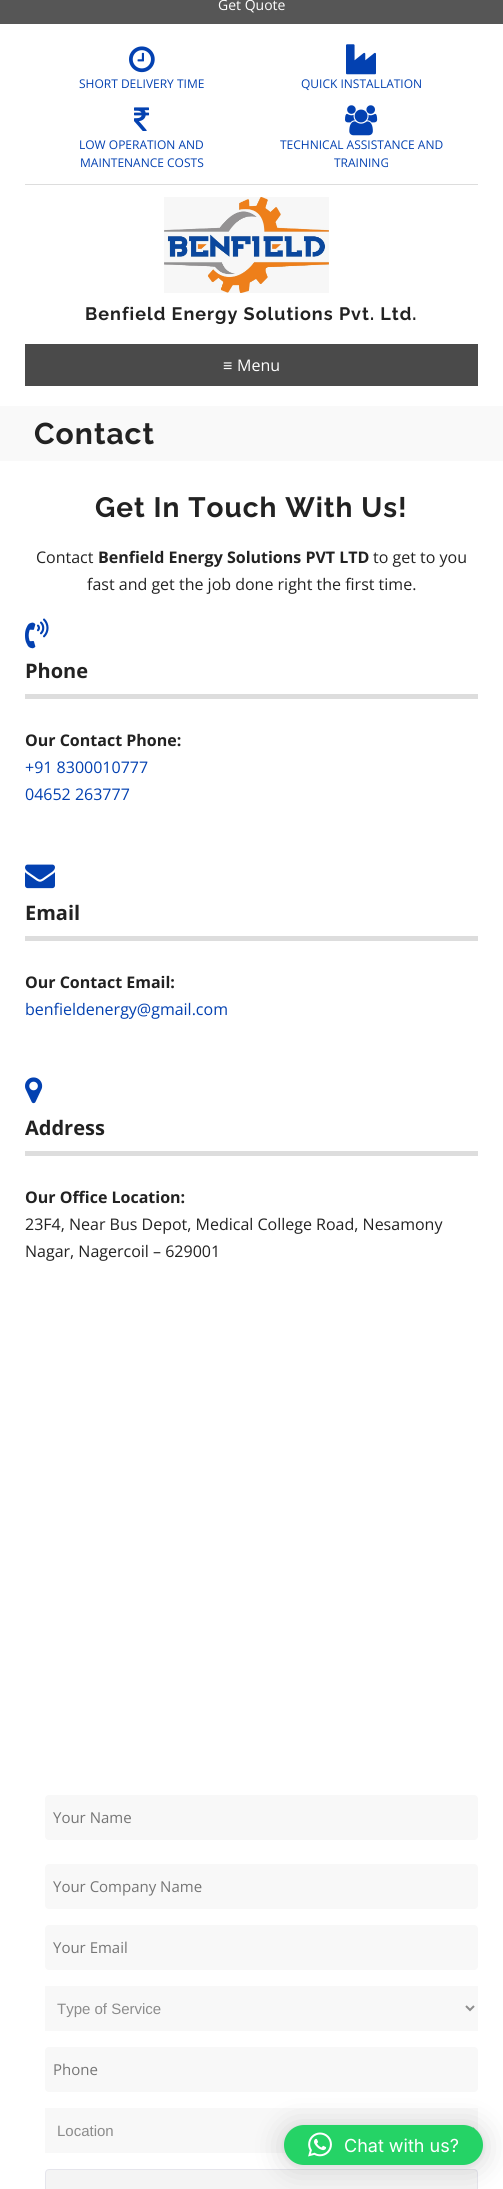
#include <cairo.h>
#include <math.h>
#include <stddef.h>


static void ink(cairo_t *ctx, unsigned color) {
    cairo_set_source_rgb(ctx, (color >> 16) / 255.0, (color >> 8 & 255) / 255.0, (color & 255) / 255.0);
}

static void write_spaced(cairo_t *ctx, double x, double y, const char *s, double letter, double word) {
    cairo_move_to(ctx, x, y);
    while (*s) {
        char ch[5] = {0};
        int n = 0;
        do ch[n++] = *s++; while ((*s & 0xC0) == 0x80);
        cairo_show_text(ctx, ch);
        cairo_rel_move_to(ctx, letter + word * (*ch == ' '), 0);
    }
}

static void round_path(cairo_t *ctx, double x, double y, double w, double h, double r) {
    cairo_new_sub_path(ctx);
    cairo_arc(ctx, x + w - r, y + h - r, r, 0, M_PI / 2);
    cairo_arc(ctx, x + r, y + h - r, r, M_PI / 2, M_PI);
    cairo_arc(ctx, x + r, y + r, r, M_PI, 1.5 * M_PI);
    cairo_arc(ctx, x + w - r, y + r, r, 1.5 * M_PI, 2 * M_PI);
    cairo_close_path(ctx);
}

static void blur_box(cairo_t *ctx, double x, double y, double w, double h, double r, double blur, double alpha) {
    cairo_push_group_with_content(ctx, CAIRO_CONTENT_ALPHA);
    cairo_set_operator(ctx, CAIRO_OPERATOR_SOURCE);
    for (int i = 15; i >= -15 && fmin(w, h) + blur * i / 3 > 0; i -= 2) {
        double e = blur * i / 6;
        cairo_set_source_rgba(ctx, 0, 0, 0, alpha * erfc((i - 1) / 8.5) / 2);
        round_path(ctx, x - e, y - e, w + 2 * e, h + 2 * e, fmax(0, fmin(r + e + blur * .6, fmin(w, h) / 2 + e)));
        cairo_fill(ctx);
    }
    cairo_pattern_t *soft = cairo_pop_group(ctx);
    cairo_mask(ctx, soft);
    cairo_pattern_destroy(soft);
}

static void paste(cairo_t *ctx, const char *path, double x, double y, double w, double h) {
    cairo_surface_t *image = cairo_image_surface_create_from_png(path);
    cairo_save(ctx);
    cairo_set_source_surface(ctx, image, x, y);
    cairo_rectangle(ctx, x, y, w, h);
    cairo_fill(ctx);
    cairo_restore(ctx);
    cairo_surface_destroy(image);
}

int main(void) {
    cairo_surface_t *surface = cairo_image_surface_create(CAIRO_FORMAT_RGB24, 503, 2189);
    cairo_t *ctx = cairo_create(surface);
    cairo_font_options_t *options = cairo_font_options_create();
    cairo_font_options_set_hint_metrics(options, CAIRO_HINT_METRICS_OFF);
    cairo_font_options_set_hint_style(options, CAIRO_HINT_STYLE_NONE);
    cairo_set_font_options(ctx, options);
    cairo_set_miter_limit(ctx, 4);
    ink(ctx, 0xFFFFFF);
    cairo_paint(ctx);
    ink(ctx, 0x565656);
    cairo_rectangle(ctx, 0, 0, 503, 24);
    cairo_fill(ctx);
    cairo_select_font_face(ctx, "Open Sans", CAIRO_FONT_SLANT_NORMAL, CAIRO_FONT_WEIGHT_NORMAL);
    cairo_set_font_size(ctx, 14);
    ink(ctx, 0xFFFFFF);
    cairo_move_to(ctx, 218, 10);
    cairo_show_text(ctx, "Get Quote");
    ink(ctx, 0xDDDDDD);
    cairo_rectangle(ctx, 25, 184, 453, 1);
    cairo_fill(ctx);
    paste(ctx, "media/1.png", 129, 46, 26, 27);
    cairo_set_font_size(ctx, 12);
    ink(ctx, 0x0341B1);
    cairo_move_to(ctx, 79, 88);
    cairo_show_text(ctx, "SHORT DELIVERY TIME");
    paste(ctx, "media/2.png", 346, 44, 30, 31);
    cairo_move_to(ctx, 301, 88);
    cairo_show_text(ctx, "QUICK INSTALLATION");
    paste(ctx, "media/3.png", 134, 107, 16, 24);
    cairo_move_to(ctx, 79, 149);
    cairo_show_text(ctx, "LOW OPERATION AND");
    cairo_move_to(ctx, 80, 167);
    cairo_show_text(ctx, "MAINTENANCE COSTS");
    paste(ctx, "media/4.png", 345, 105, 33, 31);
    cairo_move_to(ctx, 280, 149);
    cairo_show_text(ctx, "TECHNICAL ASSISTANCE AND");
    cairo_move_to(ctx, 334, 167);
    cairo_show_text(ctx, "TRAINING");
    paste(ctx, "media/5.png", 164, 197, 165, 96);
    cairo_select_font_face(ctx, "Raleway", CAIRO_FONT_SLANT_NORMAL, CAIRO_FONT_WEIGHT_BOLD);
    cairo_set_font_size(ctx, 18);
    ink(ctx, 0x222222);
    write_spaced(ctx, 85, 320, "Benfield Energy Solutions Pvt. Ltd.", 1, 0);
    ink(ctx, 0x4A4A4A);
    cairo_rectangle(ctx, 25, 344, 453, 42);
    cairo_fill(ctx);
    cairo_select_font_face(ctx, "Liberation Sans", CAIRO_FONT_SLANT_NORMAL, CAIRO_FONT_WEIGHT_NORMAL);
    cairo_set_font_size(ctx, 16);
    ink(ctx, 0xFFFFFF);
    cairo_move_to(ctx, 223, 371);
    cairo_show_text(ctx, "≡");
    cairo_select_font_face(ctx, "Open Sans", CAIRO_FONT_SLANT_NORMAL, CAIRO_FONT_WEIGHT_NORMAL);
    cairo_move_to(ctx, 237, 371);
    cairo_show_text(ctx, "Menu");
    ink(ctx, 0xF9F9F9);
    cairo_rectangle(ctx, 0, 406, 503, 55);
    cairo_fill(ctx);
    cairo_select_font_face(ctx, "Raleway", CAIRO_FONT_SLANT_NORMAL, CAIRO_FONT_WEIGHT_BOLD);
    cairo_set_font_size(ctx, 30);
    ink(ctx, 0x222222);
    write_spaced(ctx, 34, 444, "Contact", 1, 0);
    cairo_set_font_size(ctx, 28);
    write_spaced(ctx, 95, 517, "Get In Touch With Us!", 1, 0);
    cairo_select_font_face(ctx, "Open Sans", CAIRO_FONT_SLANT_NORMAL, CAIRO_FONT_WEIGHT_NORMAL);
    cairo_set_font_size(ctx, 16);
    cairo_move_to(ctx, 36, 563);
    cairo_show_text(ctx, "Contact");
    cairo_select_font_face(ctx, "Open Sans", CAIRO_FONT_SLANT_NORMAL, CAIRO_FONT_WEIGHT_BOLD);
    cairo_move_to(ctx, 98, 563);
    cairo_show_text(ctx, "Benfield Energy Solutions PVT LTD");
    cairo_select_font_face(ctx, "Open Sans", CAIRO_FONT_SLANT_NORMAL, CAIRO_FONT_WEIGHT_NORMAL);
    cairo_move_to(ctx, 373, 563);
    cairo_show_text(ctx, "to get to you");
    cairo_move_to(ctx, 87, 590);
    cairo_show_text(ctx, "fast and get the job done right the first time.");
    ink(ctx, 0xDDDDDD);
    cairo_rectangle(ctx, 25, 694, 453, 5);
    cairo_fill(ctx);
    paste(ctx, "media/6.png", 25, 618, 24, 31);
    cairo_select_font_face(ctx, "Open Sans", CAIRO_FONT_SLANT_NORMAL, CAIRO_FONT_WEIGHT_BOLD);
    cairo_set_font_size(ctx, 20);
    ink(ctx, 0x222222);
    cairo_move_to(ctx, 25, 678);
    cairo_show_text(ctx, "Phone");
    cairo_set_font_size(ctx, 16);
    cairo_move_to(ctx, 25, 746);
    cairo_show_text(ctx, "Our Contact Phone:");
    cairo_select_font_face(ctx, "Open Sans", CAIRO_FONT_SLANT_NORMAL, CAIRO_FONT_WEIGHT_NORMAL);
    ink(ctx, 0x0341B1);
    cairo_move_to(ctx, 25, 773);
    cairo_show_text(ctx, "+91 8300010777");
    cairo_move_to(ctx, 25, 800);
    cairo_show_text(ctx, "04652 263777");
    ink(ctx, 0xDDDDDD);
    cairo_rectangle(ctx, 25, 936, 453, 5);
    cairo_fill(ctx);
    paste(ctx, "media/7.png", 25, 864, 30, 25);
    cairo_select_font_face(ctx, "Open Sans", CAIRO_FONT_SLANT_NORMAL, CAIRO_FONT_WEIGHT_BOLD);
    cairo_set_font_size(ctx, 20);
    ink(ctx, 0x222222);
    cairo_move_to(ctx, 25, 920);
    cairo_show_text(ctx, "Email");
    cairo_set_font_size(ctx, 16);
    cairo_move_to(ctx, 25, 988);
    cairo_show_text(ctx, "Our Contact Email:");
    cairo_select_font_face(ctx, "Open Sans", CAIRO_FONT_SLANT_NORMAL, CAIRO_FONT_WEIGHT_NORMAL);
    ink(ctx, 0x0341B1);
    cairo_move_to(ctx, 25, 1015);
    cairo_show_text(ctx, "benfieldenergy@gmail.com");
    ink(ctx, 0xDDDDDD);
    cairo_rectangle(ctx, 25, 1151, 453, 5);
    cairo_fill(ctx);
    paste(ctx, "media/8.png", 25, 1077, 18, 27);
    cairo_select_font_face(ctx, "Open Sans", CAIRO_FONT_SLANT_NORMAL, CAIRO_FONT_WEIGHT_BOLD);
    cairo_set_font_size(ctx, 20);
    ink(ctx, 0x222222);
    cairo_move_to(ctx, 25, 1135);
    cairo_show_text(ctx, "Address");
    cairo_set_font_size(ctx, 16);
    cairo_move_to(ctx, 25, 1203);
    cairo_show_text(ctx, "Our Office Location:");
    cairo_select_font_face(ctx, "Open Sans", CAIRO_FONT_SLANT_NORMAL, CAIRO_FONT_WEIGHT_NORMAL);
    cairo_move_to(ctx, 25, 1230);
    cairo_show_text(ctx, "23F4, Near Bus Depot, Medical College Road, Nesamony");
    cairo_move_to(ctx, 25, 1257);
    cairo_show_text(ctx, "Nagar, Nagercoil – 629001");
    ink(ctx, 0xF8F8F8);
    round_path(ctx, 45, 1795, 433, 45, 4);
    cairo_fill(ctx);
    cairo_set_font_size(ctx, 15);
    ink(ctx, 0x757575);
    cairo_move_to(ctx, 53, 1823);
    cairo_show_text(ctx, "Your Name");
    ink(ctx, 0xF8F8F8);
    round_path(ctx, 45, 1864, 433, 45, 4);
    cairo_fill(ctx);
    ink(ctx, 0x757575);
    cairo_move_to(ctx, 53, 1892);
    cairo_show_text(ctx, "Your Company Name");
    ink(ctx, 0xF8F8F8);
    round_path(ctx, 45, 1925, 433, 45, 4);
    cairo_fill(ctx);
    ink(ctx, 0x757575);
    cairo_move_to(ctx, 53, 1953);
    cairo_show_text(ctx, "Your Email");
    ink(ctx, 0xF8F8F8);
    cairo_rectangle(ctx, 45, 1986, 433, 45);
    cairo_fill(ctx);
    cairo_new_path(ctx);
    cairo_move_to(ctx, 466, 2006);
    cairo_line_to(ctx, 470, 2010);
    cairo_line_to(ctx, 474, 2006);
    ink(ctx, 0x8C8C8C);
    cairo_stroke(ctx);
    cairo_select_font_face(ctx, "Liberation Sans", CAIRO_FONT_SLANT_NORMAL, CAIRO_FONT_WEIGHT_NORMAL);
    cairo_move_to(ctx, 57, 2014);
    cairo_show_text(ctx, "Type of Service");
    ink(ctx, 0xF8F8F8);
    round_path(ctx, 45, 2047, 433, 45, 4);
    cairo_fill(ctx);
    cairo_select_font_face(ctx, "Open Sans", CAIRO_FONT_SLANT_NORMAL, CAIRO_FONT_WEIGHT_NORMAL);
    ink(ctx, 0x757575);
    cairo_move_to(ctx, 53, 2075);
    cairo_show_text(ctx, "Phone");
    ink(ctx, 0xF8F8F8);
    cairo_rectangle(ctx, 45, 2108, 433, 45);
    cairo_fill(ctx);
    cairo_new_path(ctx);
    cairo_move_to(ctx, 466, 2128);
    cairo_line_to(ctx, 470, 2132);
    cairo_line_to(ctx, 474, 2128);
    ink(ctx, 0x8C8C8C);
    cairo_stroke(ctx);
    cairo_select_font_face(ctx, "Liberation Sans", CAIRO_FONT_SLANT_NORMAL, CAIRO_FONT_WEIGHT_NORMAL);
    cairo_move_to(ctx, 57, 2136);
    cairo_show_text(ctx, "Location");
    ink(ctx, 0xF4F4F4);
    round_path(ctx, 45.5, 2169.5, 432, 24, 3.5);
    cairo_fill_preserve(ctx);
    ink(ctx, 0xE5E5EC);
    cairo_set_line_width(ctx, 1);
    cairo_stroke(ctx);
    ink(ctx, 0x000000);
    blur_box(ctx, 284, 2127, 199, 40, 20, 16, 0.16);
    blur_box(ctx, 284, 2126, 199, 40, 20, 3, 0.06);
    ink(ctx, 0x25D366);
    round_path(ctx, 284, 2125, 199, 40, 20);
    cairo_fill(ctx);
    paste(ctx, "media/9.png", 308, 2132, 24, 25);
    cairo_select_font_face(ctx, "Inter", CAIRO_FONT_SLANT_NORMAL, CAIRO_FONT_WEIGHT_NORMAL);
    cairo_set_font_size(ctx, 18);
    ink(ctx, 0xFFFFFF);
    cairo_move_to(ctx, 344, 2152);
    cairo_show_text(ctx, "Chat with us?");
    cairo_surface_write_to_png(surface, "image.png");
    cairo_font_options_destroy(options);
    cairo_destroy(ctx);
    cairo_surface_destroy(surface);
    return 0;
}
